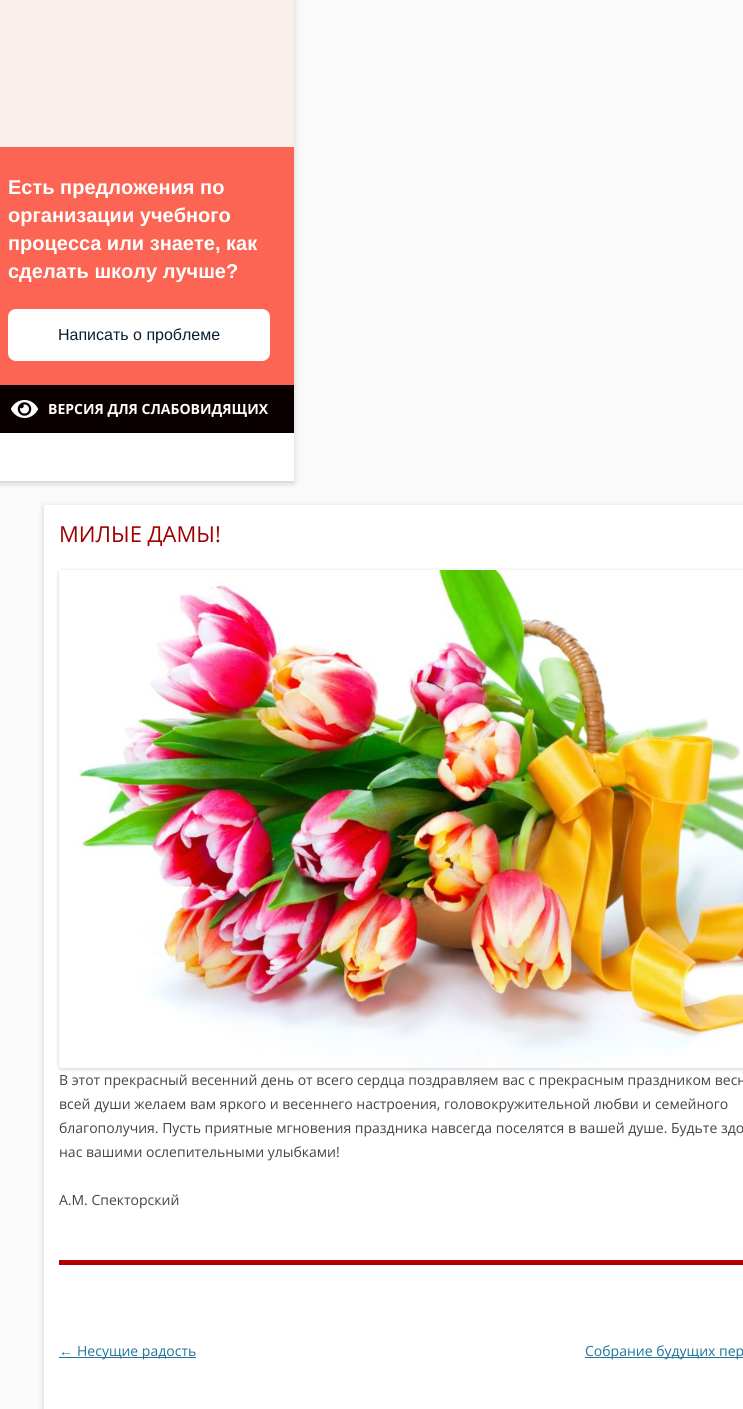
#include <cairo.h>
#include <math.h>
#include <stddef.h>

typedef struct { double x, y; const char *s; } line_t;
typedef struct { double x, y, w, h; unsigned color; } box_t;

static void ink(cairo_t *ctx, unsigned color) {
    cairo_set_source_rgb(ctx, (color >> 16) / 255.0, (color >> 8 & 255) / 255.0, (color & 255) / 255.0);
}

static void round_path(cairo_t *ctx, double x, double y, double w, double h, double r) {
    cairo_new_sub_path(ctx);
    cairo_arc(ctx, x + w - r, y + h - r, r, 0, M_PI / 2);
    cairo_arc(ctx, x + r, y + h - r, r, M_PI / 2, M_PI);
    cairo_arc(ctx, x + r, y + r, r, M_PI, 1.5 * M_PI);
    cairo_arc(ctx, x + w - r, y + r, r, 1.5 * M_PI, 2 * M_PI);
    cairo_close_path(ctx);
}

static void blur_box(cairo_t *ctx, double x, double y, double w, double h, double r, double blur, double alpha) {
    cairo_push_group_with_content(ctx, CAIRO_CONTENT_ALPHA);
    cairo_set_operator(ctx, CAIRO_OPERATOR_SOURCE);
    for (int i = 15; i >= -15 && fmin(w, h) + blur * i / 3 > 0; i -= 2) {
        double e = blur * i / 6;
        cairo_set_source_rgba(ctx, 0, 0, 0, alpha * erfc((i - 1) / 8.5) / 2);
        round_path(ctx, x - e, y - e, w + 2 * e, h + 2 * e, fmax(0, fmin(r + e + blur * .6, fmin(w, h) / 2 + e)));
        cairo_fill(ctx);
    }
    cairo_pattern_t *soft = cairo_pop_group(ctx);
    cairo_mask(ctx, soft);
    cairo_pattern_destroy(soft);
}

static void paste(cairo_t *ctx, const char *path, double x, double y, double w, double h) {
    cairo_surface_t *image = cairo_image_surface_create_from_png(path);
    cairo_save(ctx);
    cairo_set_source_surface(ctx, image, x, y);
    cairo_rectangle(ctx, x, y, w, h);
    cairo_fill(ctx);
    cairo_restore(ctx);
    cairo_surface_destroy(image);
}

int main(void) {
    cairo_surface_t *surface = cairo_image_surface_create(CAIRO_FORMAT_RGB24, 743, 1409);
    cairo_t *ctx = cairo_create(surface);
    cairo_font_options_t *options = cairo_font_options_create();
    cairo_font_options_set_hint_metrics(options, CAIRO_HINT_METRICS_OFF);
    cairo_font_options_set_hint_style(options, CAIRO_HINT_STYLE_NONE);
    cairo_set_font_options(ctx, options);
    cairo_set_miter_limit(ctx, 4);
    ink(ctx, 0xFAFAFA);
    cairo_paint(ctx);
    ink(ctx, 0x646464);
    blur_box(ctx, -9, -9, 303, 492, 0, 3, 0.3);
    {
        static const box_t items[] = {
            {0, 433, 294, 48, 0xFFFFFF},
            {0, 147, 294, 238, 0xFC6554},
            {0, 0, 294, 147, 0xF8EFEC},
        };
        for (size_t i = 0; i < sizeof items / sizeof *items; i++) {
            ink(ctx, items[i].color);
            cairo_rectangle(ctx, items[i].x, items[i].y, items[i].w, items[i].h);
            cairo_fill(ctx);
        }
    }
    cairo_select_font_face(ctx, "Liberation Sans", CAIRO_FONT_SLANT_NORMAL, CAIRO_FONT_WEIGHT_BOLD);
    cairo_set_font_size(ctx, 20);
    ink(ctx, 0xFFFFFF);
    {
        static const line_t items[] = {
            {8, 194, "Есть предложения по"},
            {8, 222, "организации учебного"},
            {8, 250, "процесса или знаете, как"},
            {8, 278, "сделать школу лучше?"},
        };
        for (size_t i = 0; i < sizeof items / sizeof *items; i++) {
            cairo_move_to(ctx, items[i].x, items[i].y);
            cairo_show_text(ctx, items[i].s);
        }
    }
    round_path(ctx, 8, 309, 262, 52, 8);
    cairo_fill(ctx);
    cairo_select_font_face(ctx, "Liberation Sans", CAIRO_FONT_SLANT_NORMAL, CAIRO_FONT_WEIGHT_NORMAL);
    cairo_set_font_size(ctx, 16);
    ink(ctx, 0x0B1F33);
    cairo_move_to(ctx, 58, 340);
    cairo_show_text(ctx, "Написать о проблеме");
    ink(ctx, 0x000000);
    cairo_rectangle(ctx, 0, 385, 294, 48);
    cairo_fill(ctx);
    ink(ctx, 0x0A0000);
    cairo_rectangle(ctx, 0, 387, 294, 44);
    cairo_fill(ctx);
    paste(ctx, "media/1.png", 11, 400, 27, 18);
    cairo_select_font_face(ctx, "Open Sans", CAIRO_FONT_SLANT_NORMAL, CAIRO_FONT_WEIGHT_BOLD);
    cairo_set_font_size(ctx, 14);
    ink(ctx, 0xFFFFFF);
    cairo_move_to(ctx, 48, 414);
    cairo_show_text(ctx, "ВЕРСИЯ ДЛЯ СЛАБОВИДЯЩИХ");
    ink(ctx, 0x646464);
    blur_box(ctx, 44, 507, 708, 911, 0, 3, 0.3);
    ink(ctx, 0xFFFFFF);
    cairo_rectangle(ctx, 44, 505, 699, 904);
    cairo_fill(ctx);
    ink(ctx, 0xB10002);
    cairo_rectangle(ctx, 59, 1260, 684, 5);
    cairo_fill(ctx);
    cairo_select_font_face(ctx, "Open Sans", CAIRO_FONT_SLANT_NORMAL, CAIRO_FONT_WEIGHT_NORMAL);
    cairo_set_font_size(ctx, 22);
    ink(ctx, 0x9F0002);
    cairo_move_to(ctx, 59, 542);
    cairo_show_text(ctx, "МИЛЫЕ ДАМЫ!");
    ink(ctx, 0x000000);
    blur_box(ctx, 59, 571, 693, 498, 3, 2, 0.2);
    paste(ctx, "media/2.png", 59, 570, 684, 498);
    cairo_set_font_size(ctx, 14);
    ink(ctx, 0x444444);
    {
        static const line_t items[] = {
            {59, 1085, "В этот прекрасный весенний день от всего сердца поздравляем вас с прекрасным праздником весн"},
            {59, 1109, "всей души желаем вам яркого и весеннего настроения, головокружительной любви и семейного"},
            {59, 1133, "благополучия. Пусть приятные мгновения праздника навсегда поселятся в вашей душе. Будьте здо"},
            {59, 1157, "нас вашими ослепительными улыбками!"},
            {59, 1205, "А.М. Спекторский"},
        };
        for (size_t i = 0; i < sizeof items / sizeof *items; i++) {
            cairo_move_to(ctx, items[i].x, items[i].y);
            cairo_show_text(ctx, items[i].s);
        }
    }
    cairo_select_font_face(ctx, "Liberation Sans", CAIRO_FONT_SLANT_NORMAL, CAIRO_FONT_WEIGHT_NORMAL);
    ink(ctx, 0x21759B);
    cairo_move_to(ctx, 59, 1356);
    cairo_show_text(ctx, "←");
    cairo_rectangle(ctx, 59, 1357, 137, 1);
    cairo_fill(ctx);
    cairo_select_font_face(ctx, "Open Sans", CAIRO_FONT_SLANT_NORMAL, CAIRO_FONT_WEIGHT_NORMAL);
    cairo_move_to(ctx, 77, 1356);
    cairo_show_text(ctx, "Несущие радость");
    cairo_rectangle(ctx, 585, 1357, 158, 1);
    cairo_fill(ctx);
    cairo_move_to(ctx, 585, 1356);
    cairo_show_text(ctx, "Собрание будущих пер");
    cairo_surface_write_to_png(surface, "image.png");
    cairo_font_options_destroy(options);
    cairo_destroy(ctx);
    cairo_surface_destroy(surface);
    return 0;
}
